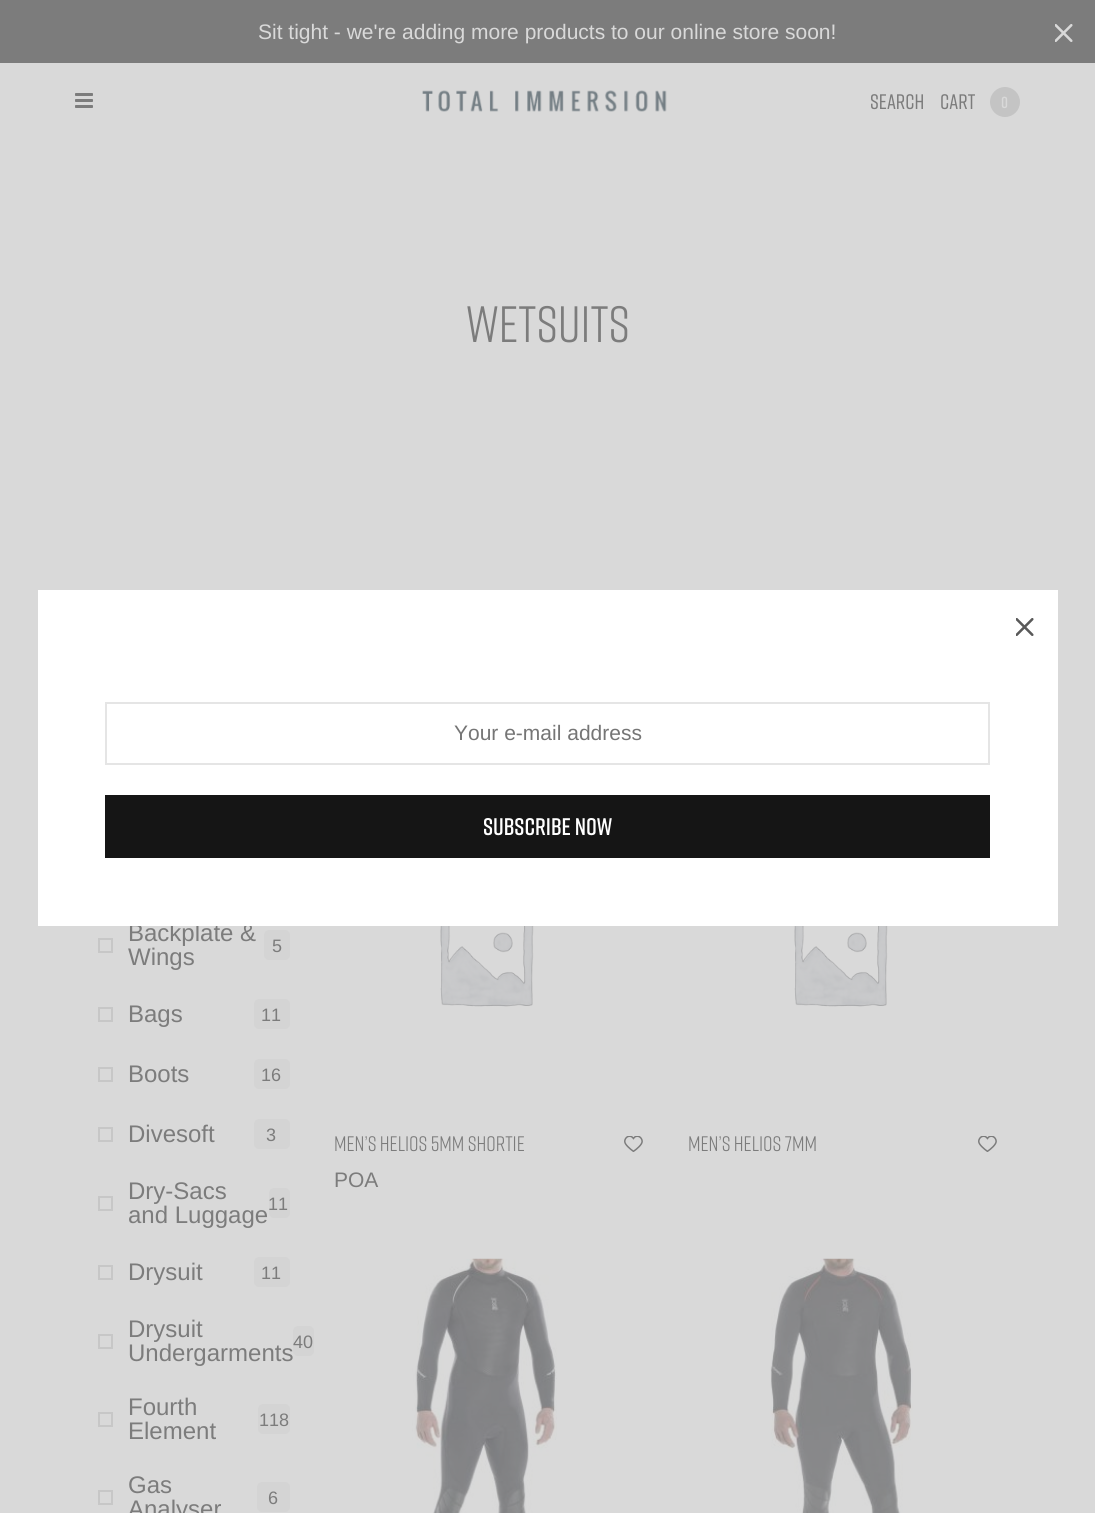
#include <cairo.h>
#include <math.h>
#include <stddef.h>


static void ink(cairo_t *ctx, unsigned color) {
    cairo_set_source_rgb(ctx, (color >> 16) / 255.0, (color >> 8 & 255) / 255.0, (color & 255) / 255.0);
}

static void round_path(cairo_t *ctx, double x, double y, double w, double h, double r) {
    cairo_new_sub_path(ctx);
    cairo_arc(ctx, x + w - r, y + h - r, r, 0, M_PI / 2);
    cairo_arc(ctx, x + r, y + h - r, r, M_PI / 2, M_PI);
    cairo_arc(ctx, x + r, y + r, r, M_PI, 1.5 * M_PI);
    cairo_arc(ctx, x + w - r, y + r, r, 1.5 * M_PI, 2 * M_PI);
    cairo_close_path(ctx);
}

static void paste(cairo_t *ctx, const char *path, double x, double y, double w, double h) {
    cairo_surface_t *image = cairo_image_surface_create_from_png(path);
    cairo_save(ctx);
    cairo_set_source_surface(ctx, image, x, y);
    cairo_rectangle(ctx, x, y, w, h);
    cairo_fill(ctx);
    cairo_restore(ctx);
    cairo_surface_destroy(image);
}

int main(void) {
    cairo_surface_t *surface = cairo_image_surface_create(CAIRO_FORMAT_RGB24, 1095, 1513);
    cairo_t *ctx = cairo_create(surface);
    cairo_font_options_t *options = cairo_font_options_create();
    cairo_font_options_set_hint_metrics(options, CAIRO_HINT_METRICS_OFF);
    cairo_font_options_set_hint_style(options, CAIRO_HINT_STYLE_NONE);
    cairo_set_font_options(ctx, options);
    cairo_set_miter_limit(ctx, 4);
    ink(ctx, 0xD9D9D9);
    cairo_paint(ctx);
    ink(ctx, 0x7C7C7C);
    cairo_rectangle(ctx, 0, 0, 1095, 63);
    cairo_fill(ctx);
    cairo_select_font_face(ctx, "Liberation Sans", CAIRO_FONT_SLANT_NORMAL, CAIRO_FONT_WEIGHT_NORMAL);
    cairo_set_font_size(ctx, 21);
    ink(ctx, 0xD9D9D9);
    cairo_move_to(ctx, 258, 39);
    cairo_show_text(ctx, "Sit tight - we're adding more products to our online store soon!");
    paste(ctx, "media/1.png", 1055, 24, 18, 18);
    paste(ctx, "media/2.png", 75, 93, 18, 15);
    paste(ctx, "media/3.png", 422, 90, 245, 22);
    cairo_select_font_face(ctx, "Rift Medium", CAIRO_FONT_SLANT_NORMAL, CAIRO_FONT_WEIGHT_NORMAL);
    ink(ctx, 0x7C7C7C);
    cairo_move_to(ctx, 870, 109);
    cairo_show_text(ctx, "Search");
    cairo_move_to(ctx, 940, 109);
    cairo_show_text(ctx, "Cart");
    ink(ctx, 0xC4C4C4);
    cairo_new_path(ctx);
    cairo_arc(ctx, 1005, 102, 15, 0, 2 * M_PI);
    cairo_fill(ctx);
    cairo_select_font_face(ctx, "Rift SemiBold", CAIRO_FONT_SLANT_NORMAL, CAIRO_FONT_WEIGHT_NORMAL);
    cairo_set_font_size(ctx, 16);
    ink(ctx, 0xD9D9D9);
    cairo_move_to(ctx, 1001, 108);
    cairo_show_text(ctx, "0");
    cairo_select_font_face(ctx, "Rift", CAIRO_FONT_SLANT_NORMAL, CAIRO_FONT_WEIGHT_NORMAL);
    cairo_set_font_size(ctx, 51);
    ink(ctx, 0x7C7C7C);
    cairo_move_to(ctx, 466, 342);
    cairo_show_text(ctx, "Wetsuits");
    cairo_rectangle(ctx, 99, 939, 13, 13);
    ink(ctx, 0xC7C7C7);
    cairo_stroke(ctx);
    cairo_select_font_face(ctx, "Liberation Sans", CAIRO_FONT_SLANT_NORMAL, CAIRO_FONT_WEIGHT_NORMAL);
    cairo_set_font_size(ctx, 24);
    ink(ctx, 0x7C7C7C);
    cairo_move_to(ctx, 128, 941);
    cairo_show_text(ctx, "Backplate &");
    cairo_move_to(ctx, 128, 965);
    cairo_show_text(ctx, "Wings");
    ink(ctx, 0xD4D4D4);
    round_path(ctx, 264, 930, 26, 30, 5);
    cairo_fill(ctx);
    cairo_set_font_size(ctx, 18);
    ink(ctx, 0x7C7C7C);
    cairo_move_to(ctx, 272, 952);
    cairo_show_text(ctx, "5");
    cairo_rectangle(ctx, 99, 1008, 13, 13);
    ink(ctx, 0xC7C7C7);
    cairo_stroke(ctx);
    cairo_set_font_size(ctx, 24);
    ink(ctx, 0x7C7C7C);
    cairo_move_to(ctx, 128, 1022);
    cairo_show_text(ctx, "Bags");
    ink(ctx, 0xD4D4D4);
    round_path(ctx, 254, 999, 36, 30, 5);
    cairo_fill(ctx);
    cairo_set_font_size(ctx, 18);
    ink(ctx, 0x7C7C7C);
    cairo_move_to(ctx, 261, 1021);
    cairo_show_text(ctx, "11");
    cairo_rectangle(ctx, 99, 1068, 13, 13);
    ink(ctx, 0xC7C7C7);
    cairo_stroke(ctx);
    cairo_set_font_size(ctx, 24);
    ink(ctx, 0x7C7C7C);
    cairo_move_to(ctx, 128, 1082);
    cairo_show_text(ctx, "Boots");
    ink(ctx, 0xD4D4D4);
    round_path(ctx, 254, 1059, 36, 30, 5);
    cairo_fill(ctx);
    cairo_set_font_size(ctx, 18);
    ink(ctx, 0x7C7C7C);
    cairo_move_to(ctx, 261, 1081);
    cairo_show_text(ctx, "16");
    cairo_rectangle(ctx, 99, 1128, 13, 13);
    ink(ctx, 0xC7C7C7);
    cairo_stroke(ctx);
    cairo_set_font_size(ctx, 24);
    ink(ctx, 0x7C7C7C);
    cairo_move_to(ctx, 128, 1142);
    cairo_show_text(ctx, "Divesoft");
    ink(ctx, 0xD4D4D4);
    round_path(ctx, 254, 1119, 36, 30, 5);
    cairo_fill(ctx);
    cairo_set_font_size(ctx, 18);
    ink(ctx, 0x7C7C7C);
    cairo_move_to(ctx, 266, 1141);
    cairo_show_text(ctx, "3");
    cairo_rectangle(ctx, 99, 1197, 13, 13);
    ink(ctx, 0xC7C7C7);
    cairo_stroke(ctx);
    cairo_set_font_size(ctx, 24);
    ink(ctx, 0x7C7C7C);
    cairo_move_to(ctx, 128, 1199);
    cairo_show_text(ctx, "Dry-Sacs");
    cairo_move_to(ctx, 128, 1223);
    cairo_show_text(ctx, "and Luggage");
    ink(ctx, 0xD4D4D4);
    round_path(ctx, 269, 1188, 21, 30, 5);
    cairo_fill(ctx);
    cairo_set_font_size(ctx, 18);
    ink(ctx, 0x7C7C7C);
    cairo_move_to(ctx, 268, 1210);
    cairo_show_text(ctx, "11");
    cairo_rectangle(ctx, 99, 1266, 13, 13);
    ink(ctx, 0xC7C7C7);
    cairo_stroke(ctx);
    cairo_set_font_size(ctx, 24);
    ink(ctx, 0x7C7C7C);
    cairo_move_to(ctx, 128, 1280);
    cairo_show_text(ctx, "Drysuit");
    ink(ctx, 0xD4D4D4);
    round_path(ctx, 254, 1257, 36, 30, 5);
    cairo_fill(ctx);
    cairo_set_font_size(ctx, 18);
    ink(ctx, 0x7C7C7C);
    cairo_move_to(ctx, 261, 1279);
    cairo_show_text(ctx, "11");
    cairo_rectangle(ctx, 99, 1335, 13, 13);
    ink(ctx, 0xC7C7C7);
    cairo_stroke(ctx);
    cairo_set_font_size(ctx, 24);
    ink(ctx, 0x7C7C7C);
    cairo_move_to(ctx, 128, 1337);
    cairo_show_text(ctx, "Drysuit");
    cairo_move_to(ctx, 128, 1361);
    cairo_show_text(ctx, "Undergarments");
    ink(ctx, 0xD4D4D4);
    round_path(ctx, 293, 1326, 21, 30, 5);
    cairo_fill(ctx);
    cairo_set_font_size(ctx, 18);
    ink(ctx, 0x7C7C7C);
    cairo_move_to(ctx, 293, 1348);
    cairo_show_text(ctx, "40");
    cairo_rectangle(ctx, 99, 1413, 13, 13);
    ink(ctx, 0xC7C7C7);
    cairo_stroke(ctx);
    cairo_set_font_size(ctx, 24);
    ink(ctx, 0x7C7C7C);
    cairo_move_to(ctx, 128, 1415);
    cairo_show_text(ctx, "Fourth");
    cairo_move_to(ctx, 128, 1439);
    cairo_show_text(ctx, "Element");
    ink(ctx, 0xD4D4D4);
    round_path(ctx, 258, 1404, 32, 30, 5);
    cairo_fill(ctx);
    cairo_set_font_size(ctx, 18);
    ink(ctx, 0x7C7C7C);
    cairo_move_to(ctx, 259, 1426);
    cairo_show_text(ctx, "118");
    cairo_rectangle(ctx, 99, 1491, 13, 13);
    ink(ctx, 0xC7C7C7);
    cairo_stroke(ctx);
    cairo_set_font_size(ctx, 24);
    ink(ctx, 0x7C7C7C);
    cairo_move_to(ctx, 128, 1493);
    cairo_show_text(ctx, "Gas");
    cairo_move_to(ctx, 128, 1517);
    cairo_show_text(ctx, "Analyser");
    ink(ctx, 0xD4D4D4);
    round_path(ctx, 257, 1482, 33, 30, 5);
    cairo_fill(ctx);
    cairo_set_font_size(ctx, 18);
    ink(ctx, 0x7C7C7C);
    cairo_move_to(ctx, 268, 1504);
    cairo_show_text(ctx, "6");
    paste(ctx, "media/4.png", 440, 926, 94, 81);
    cairo_select_font_face(ctx, "Rift", CAIRO_FONT_SLANT_NORMAL, CAIRO_FONT_WEIGHT_NORMAL);
    cairo_set_font_size(ctx, 21);
    cairo_move_to(ctx, 334, 1151);
    cairo_show_text(ctx, "Men’s Helios 5mm Shortie");
    paste(ctx, "media/5.png", 624, 1136, 19, 16);
    cairo_select_font_face(ctx, "Liberation Sans", CAIRO_FONT_SLANT_NORMAL, CAIRO_FONT_WEIGHT_NORMAL);
    cairo_move_to(ctx, 334, 1187);
    cairo_show_text(ctx, "POA");
    paste(ctx, "media/4.png", 794, 926, 94, 81);
    cairo_select_font_face(ctx, "Rift", CAIRO_FONT_SLANT_NORMAL, CAIRO_FONT_WEIGHT_NORMAL);
    cairo_move_to(ctx, 688, 1151);
    cairo_show_text(ctx, "Men’s Helios 7mm");
    paste(ctx, "media/5.png", 978, 1136, 19, 16);
    paste(ctx, "media/6.png", 412, 1258, 145, 255);
    paste(ctx, "media/7.png", 770, 1258, 143, 255);
    ink(ctx, 0xFFFFFF);
    cairo_rectangle(ctx, 38, 590, 1020, 336);
    cairo_fill(ctx);
    paste(ctx, "media/8.png", 1016, 618, 18, 18);
    cairo_rectangle(ctx, 106, 703, 883, 61);
    ink(ctx, 0xE5E5E5);
    cairo_stroke(ctx);
    cairo_select_font_face(ctx, "Liberation Sans", CAIRO_FONT_SLANT_NORMAL, CAIRO_FONT_WEIGHT_NORMAL);
    ink(ctx, 0x757575);
    cairo_move_to(ctx, 454, 740);
    cairo_show_text(ctx, "Your e-mail address");
    ink(ctx, 0x151515);
    cairo_rectangle(ctx, 105, 795, 885, 63);
    cairo_fill(ctx);
    cairo_select_font_face(ctx, "Rift SemiBold", CAIRO_FONT_SLANT_NORMAL, CAIRO_FONT_WEIGHT_NORMAL);
    cairo_set_font_size(ctx, 24);
    ink(ctx, 0xFFFFFF);
    cairo_move_to(ctx, 483, 835);
    cairo_show_text(ctx, "Subscribe Now");
    cairo_surface_write_to_png(surface, "image.png");
    cairo_font_options_destroy(options);
    cairo_destroy(ctx);
    cairo_surface_destroy(surface);
    return 0;
}
